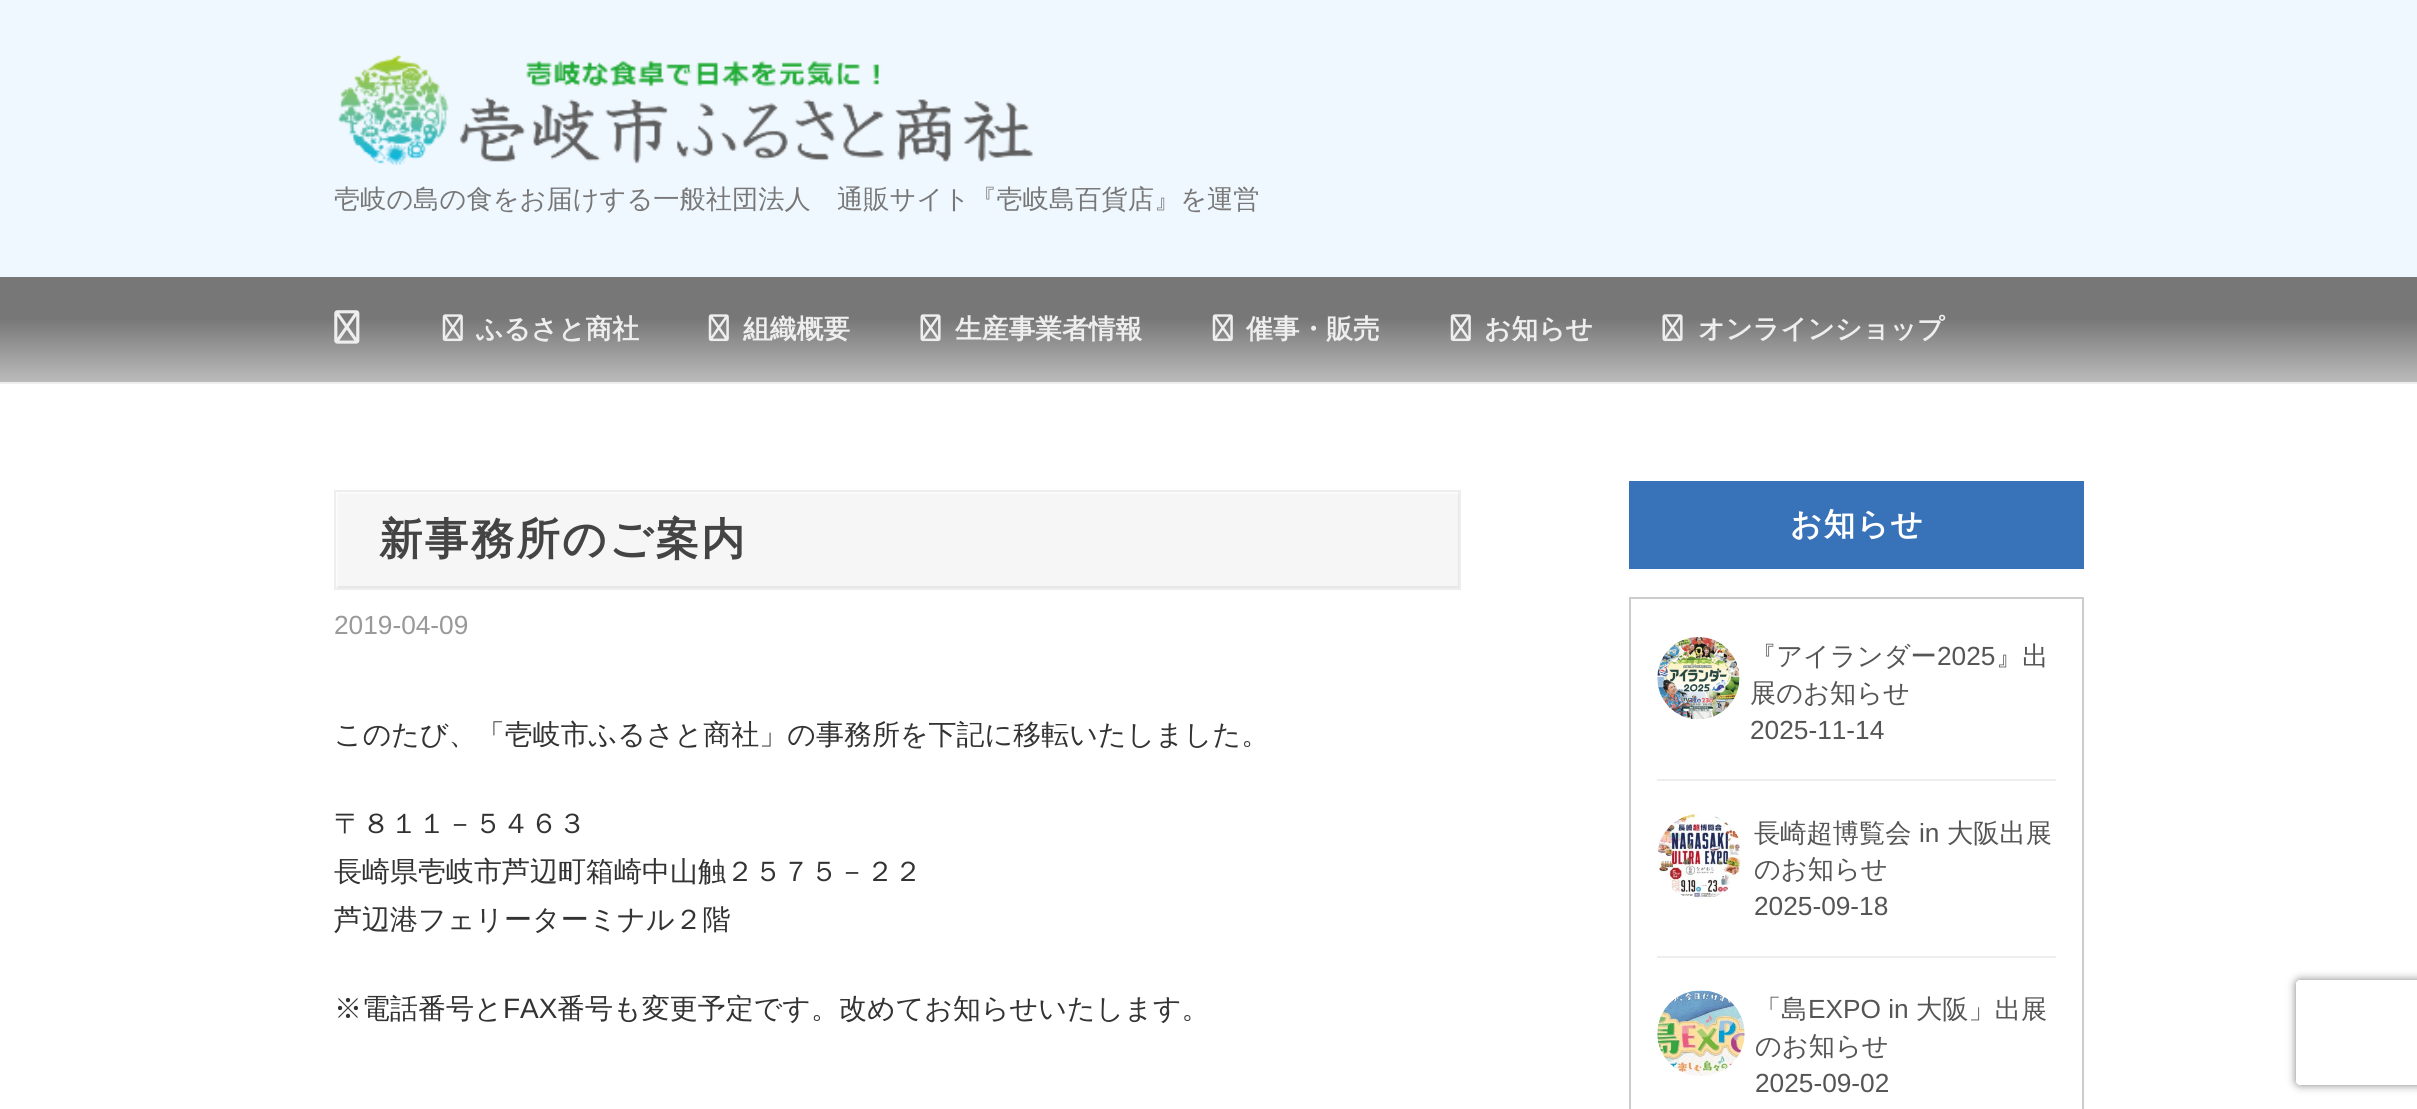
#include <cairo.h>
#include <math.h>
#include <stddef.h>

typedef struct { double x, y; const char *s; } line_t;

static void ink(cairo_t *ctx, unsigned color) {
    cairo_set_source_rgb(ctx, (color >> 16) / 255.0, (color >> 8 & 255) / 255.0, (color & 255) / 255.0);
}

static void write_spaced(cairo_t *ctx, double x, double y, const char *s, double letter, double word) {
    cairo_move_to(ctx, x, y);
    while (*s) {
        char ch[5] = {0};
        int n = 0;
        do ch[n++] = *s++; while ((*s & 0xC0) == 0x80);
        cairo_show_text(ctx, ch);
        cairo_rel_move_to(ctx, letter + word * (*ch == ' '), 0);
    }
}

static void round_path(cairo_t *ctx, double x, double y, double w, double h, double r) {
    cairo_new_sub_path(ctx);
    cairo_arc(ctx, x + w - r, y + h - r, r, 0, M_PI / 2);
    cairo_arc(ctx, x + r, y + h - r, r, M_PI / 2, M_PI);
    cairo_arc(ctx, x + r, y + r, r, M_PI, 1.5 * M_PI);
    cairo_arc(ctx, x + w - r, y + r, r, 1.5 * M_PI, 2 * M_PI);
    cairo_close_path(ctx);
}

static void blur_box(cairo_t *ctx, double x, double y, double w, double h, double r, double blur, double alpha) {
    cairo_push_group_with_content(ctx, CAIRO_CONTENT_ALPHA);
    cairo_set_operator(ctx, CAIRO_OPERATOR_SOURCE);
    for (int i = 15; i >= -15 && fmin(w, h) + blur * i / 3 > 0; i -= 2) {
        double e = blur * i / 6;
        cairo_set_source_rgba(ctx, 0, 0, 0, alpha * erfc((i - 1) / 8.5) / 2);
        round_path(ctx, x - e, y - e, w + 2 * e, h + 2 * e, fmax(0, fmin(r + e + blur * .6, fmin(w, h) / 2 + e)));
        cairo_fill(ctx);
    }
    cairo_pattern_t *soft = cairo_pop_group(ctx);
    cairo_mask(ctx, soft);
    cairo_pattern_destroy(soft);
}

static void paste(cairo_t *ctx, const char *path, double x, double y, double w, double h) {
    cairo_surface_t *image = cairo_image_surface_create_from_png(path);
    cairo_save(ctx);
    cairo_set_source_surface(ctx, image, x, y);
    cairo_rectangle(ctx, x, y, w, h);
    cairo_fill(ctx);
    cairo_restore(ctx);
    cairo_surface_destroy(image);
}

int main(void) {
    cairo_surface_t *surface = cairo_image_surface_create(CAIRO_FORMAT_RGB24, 2417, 1109);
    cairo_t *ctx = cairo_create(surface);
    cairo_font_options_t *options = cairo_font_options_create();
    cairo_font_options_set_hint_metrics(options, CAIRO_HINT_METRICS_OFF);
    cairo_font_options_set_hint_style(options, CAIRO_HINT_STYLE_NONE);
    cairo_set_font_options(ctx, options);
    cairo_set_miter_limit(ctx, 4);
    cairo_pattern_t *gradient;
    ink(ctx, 0xFFFFFF);
    cairo_paint(ctx);
    ink(ctx, 0xF0F8FF);
    cairo_rectangle(ctx, 0, 0, 2417, 277);
    cairo_fill(ctx);
    ink(ctx, 0xEEEEEE);
    cairo_rectangle(ctx, 0, 382, 2417, 2);
    cairo_fill(ctx);
    paste(ctx, "media/1.png", 337, 55, 696, 111);
    cairo_select_font_face(ctx, "WenQuanYi Zen Hei Medium", CAIRO_FONT_SLANT_NORMAL, CAIRO_FONT_WEIGHT_NORMAL);
    cairo_set_font_size(ctx, 26.25);
    ink(ctx, 0x777777);
    cairo_move_to(ctx, 334, 208);
    cairo_show_text(ctx, "壱岐の島の食をお届けする一般社団法人　通販サイト『壱岐島百貨店』を運営");
    gradient = cairo_pattern_create_linear(1209, 276, 1209, 382);
    cairo_pattern_add_color_stop_rgba(gradient, 0.4, 0.467, 0.467, 0.467, 1);
    cairo_pattern_add_color_stop_rgba(gradient, 1, 0.733, 0.733, 0.733, 1);
    cairo_set_source(ctx, gradient);
    cairo_pattern_destroy(gradient);
    cairo_rectangle(ctx, 0, 277, 2417, 105);
    cairo_fill(ctx);
    paste(ctx, "media/2.png", 334, 310, 26, 34);
    paste(ctx, "media/3.png", 442, 314, 21, 28);
    cairo_select_font_face(ctx, "WenQuanYi Zen Hei", CAIRO_FONT_SLANT_NORMAL, CAIRO_FONT_WEIGHT_BOLD);
    cairo_set_font_size(ctx, 26.75);
    ink(ctx, 0xEEEEEE);
    cairo_move_to(ctx, 476, 338);
    cairo_show_text(ctx, "ふるさと商社");
    paste(ctx, "media/3.png", 708, 314, 21, 28);
    cairo_move_to(ctx, 743, 338);
    cairo_show_text(ctx, "組織概要");
    paste(ctx, "media/4.png", 920, 314, 21, 28);
    cairo_move_to(ctx, 955, 338);
    cairo_show_text(ctx, "生産事業者情報");
    paste(ctx, "media/3.png", 1212, 314, 21, 28);
    cairo_move_to(ctx, 1246, 338);
    cairo_show_text(ctx, "催事・販売");
    paste(ctx, "media/3.png", 1450, 314, 21, 28);
    cairo_move_to(ctx, 1484, 338);
    cairo_show_text(ctx, "お知らせ");
    paste(ctx, "media/4.png", 1662, 314, 21, 28);
    cairo_move_to(ctx, 1698, 338);
    cairo_show_text(ctx, "オンラインショップ");
    ink(ctx, 0xF6F6F6);
    cairo_rectangle(ctx, 336, 492, 1122, 94);
    cairo_fill(ctx);
    cairo_save(ctx);
    cairo_rectangle(ctx, 336, 492, 1124, 96);
    cairo_clip(ctx);
    ink(ctx, 0xE7E7E7);
    cairo_set_fill_rule(ctx, CAIRO_FILL_RULE_EVEN_ODD);
    cairo_new_path(ctx);
    cairo_move_to(ctx, 163, 318);
    cairo_line_to(ctx, 1633, 318);
    cairo_line_to(ctx, 1633, 761);
    cairo_line_to(ctx, 163, 761);
    cairo_close_path(ctx);
    cairo_move_to(ctx, 334, 490);
    cairo_line_to(ctx, 1458, 490);
    cairo_line_to(ctx, 1458, 586);
    cairo_line_to(ctx, 334, 586);
    cairo_close_path(ctx);
    cairo_fill(ctx);
    cairo_set_source_rgba(ctx, 1, 1, 1, 0.5);
    cairo_new_path(ctx);
    cairo_move_to(ctx, 163, 318);
    cairo_line_to(ctx, 1633, 318);
    cairo_line_to(ctx, 1633, 761);
    cairo_line_to(ctx, 163, 761);
    cairo_close_path(ctx);
    cairo_move_to(ctx, 338, 494);
    cairo_line_to(ctx, 1461, 494);
    cairo_line_to(ctx, 1461, 590);
    cairo_line_to(ctx, 338, 590);
    cairo_close_path(ctx);
    cairo_fill(ctx);
    cairo_restore(ctx);
    cairo_rectangle(ctx, 335, 491, 1125, 98);
    ink(ctx, 0xEEEEEE);
    cairo_stroke(ctx);
    cairo_set_font_size(ctx, 43.5);
    ink(ctx, 0x444444);
    write_spaced(ctx, 379, 554, "新事務所のご案内", 2.25, 0);
    cairo_select_font_face(ctx, "Liberation Sans", CAIRO_FONT_SLANT_NORMAL, CAIRO_FONT_WEIGHT_NORMAL);
    cairo_set_font_size(ctx, 26.25);
    ink(ctx, 0x999999);
    cairo_move_to(ctx, 334, 634);
    cairo_show_text(ctx, "2019-04-09");
    cairo_select_font_face(ctx, "WenQuanYi Zen Hei Medium", CAIRO_FONT_SLANT_NORMAL, CAIRO_FONT_WEIGHT_NORMAL);
    cairo_set_font_size(ctx, 28);
    ink(ctx, 0x333333);
    {
        static const line_t items[] = {
            {334, 744, "このたび、「壱岐市ふるさと商社」の事務所を下記に移転いたしました。"},
            {334, 833, "〒８１１－５４６３"},
            {334, 881, "長崎県壱岐市芦辺町箱崎中山触２５７５－２２"},
            {334, 929, "芦辺港フェリーターミナル２階"},
            {334, 1018, "※電話番号と"},
        };
        for (size_t i = 0; i < sizeof items / sizeof *items; i++) {
            cairo_move_to(ctx, items[i].x, items[i].y);
            cairo_show_text(ctx, items[i].s);
        }
    }
    cairo_select_font_face(ctx, "Liberation Sans", CAIRO_FONT_SLANT_NORMAL, CAIRO_FONT_WEIGHT_NORMAL);
    cairo_move_to(ctx, 503, 1018);
    cairo_show_text(ctx, "FAX");
    cairo_select_font_face(ctx, "WenQuanYi Zen Hei Medium", CAIRO_FONT_SLANT_NORMAL, CAIRO_FONT_WEIGHT_NORMAL);
    cairo_move_to(ctx, 557, 1018);
    cairo_show_text(ctx, "番号も変更予定です。改めてお知らせいたします。");
    ink(ctx, 0x3872B8);
    cairo_rectangle(ctx, 1629, 481, 455, 88);
    cairo_fill(ctx);
    cairo_select_font_face(ctx, "WenQuanYi Zen Hei", CAIRO_FONT_SLANT_NORMAL, CAIRO_FONT_WEIGHT_BOLD);
    cairo_set_font_size(ctx, 31.5);
    ink(ctx, 0xFFFFFF);
    write_spaced(ctx, 1790, 535, "お知らせ", 1.5, 0);
    cairo_rectangle(ctx, 1630, 598, 453, 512);
    ink(ctx, 0xCCCCCC);
    cairo_stroke(ctx);
    paste(ctx, "media/5.png", 1657, 637, 83, 82);
    cairo_select_font_face(ctx, "WenQuanYi Zen Hei Medium", CAIRO_FONT_SLANT_NORMAL, CAIRO_FONT_WEIGHT_NORMAL);
    cairo_set_font_size(ctx, 26.25);
    ink(ctx, 0x555555);
    cairo_move_to(ctx, 1750, 665);
    cairo_show_text(ctx, "『アイランダー");
    cairo_select_font_face(ctx, "Liberation Sans", CAIRO_FONT_SLANT_NORMAL, CAIRO_FONT_WEIGHT_NORMAL);
    cairo_move_to(ctx, 1937, 665);
    cairo_show_text(ctx, "2025");
    cairo_select_font_face(ctx, "WenQuanYi Zen Hei Medium", CAIRO_FONT_SLANT_NORMAL, CAIRO_FONT_WEIGHT_NORMAL);
    cairo_move_to(ctx, 1996, 665);
    cairo_show_text(ctx, "』出");
    cairo_move_to(ctx, 1750, 702);
    cairo_show_text(ctx, "展のお知らせ");
    cairo_select_font_face(ctx, "Liberation Sans", CAIRO_FONT_SLANT_NORMAL, CAIRO_FONT_WEIGHT_NORMAL);
    cairo_move_to(ctx, 1750, 739);
    cairo_show_text(ctx, "2025-11-14");
    ink(ctx, 0xEEEEEE);
    cairo_rectangle(ctx, 1657, 779, 399, 2);
    cairo_fill(ctx);
    paste(ctx, "media/6.png", 1657, 814, 85, 85);
    cairo_select_font_face(ctx, "WenQuanYi Zen Hei Medium", CAIRO_FONT_SLANT_NORMAL, CAIRO_FONT_WEIGHT_NORMAL);
    ink(ctx, 0x555555);
    cairo_move_to(ctx, 1754, 842);
    cairo_show_text(ctx, "長崎超博覧会");
    cairo_select_font_face(ctx, "Liberation Sans", CAIRO_FONT_SLANT_NORMAL, CAIRO_FONT_WEIGHT_NORMAL);
    cairo_move_to(ctx, 1919, 842);
    cairo_show_text(ctx, "in");
    cairo_select_font_face(ctx, "WenQuanYi Zen Hei Medium", CAIRO_FONT_SLANT_NORMAL, CAIRO_FONT_WEIGHT_NORMAL);
    cairo_move_to(ctx, 1947, 842);
    cairo_show_text(ctx, "大阪出展");
    cairo_move_to(ctx, 1754, 878);
    cairo_show_text(ctx, "のお知らせ");
    cairo_select_font_face(ctx, "Liberation Sans", CAIRO_FONT_SLANT_NORMAL, CAIRO_FONT_WEIGHT_NORMAL);
    cairo_move_to(ctx, 1754, 915);
    cairo_show_text(ctx, "2025-09-18");
    ink(ctx, 0xEEEEEE);
    cairo_rectangle(ctx, 1657, 956, 399, 2);
    cairo_fill(ctx);
    paste(ctx, "media/7.png", 1657, 990, 88, 86);
    cairo_select_font_face(ctx, "WenQuanYi Zen Hei Medium", CAIRO_FONT_SLANT_NORMAL, CAIRO_FONT_WEIGHT_NORMAL);
    ink(ctx, 0x555555);
    cairo_move_to(ctx, 1755, 1018);
    cairo_show_text(ctx, "「島");
    cairo_select_font_face(ctx, "Liberation Sans", CAIRO_FONT_SLANT_NORMAL, CAIRO_FONT_WEIGHT_NORMAL);
    cairo_move_to(ctx, 1808, 1018);
    cairo_show_text(ctx, "EXPO in");
    cairo_select_font_face(ctx, "WenQuanYi Zen Hei Medium", CAIRO_FONT_SLANT_NORMAL, CAIRO_FONT_WEIGHT_NORMAL);
    cairo_move_to(ctx, 1916, 1018);
    cairo_show_text(ctx, "大阪」出展");
    cairo_move_to(ctx, 1755, 1055);
    cairo_show_text(ctx, "のお知らせ");
    cairo_select_font_face(ctx, "Liberation Sans", CAIRO_FONT_SLANT_NORMAL, CAIRO_FONT_WEIGHT_NORMAL);
    cairo_move_to(ctx, 1755, 1092);
    cairo_show_text(ctx, "2025-09-02");
    cairo_save(ctx);
    cairo_set_fill_rule(ctx, CAIRO_FILL_RULE_EVEN_ODD);
    cairo_new_path(ctx);
    cairo_move_to(ctx, 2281, 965);
    cairo_line_to(ctx, 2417, 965);
    cairo_line_to(ctx, 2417, 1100);
    cairo_line_to(ctx, 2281, 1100);
    cairo_close_path(ctx);
    cairo_move_to(ctx, 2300, 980);
    cairo_line_to(ctx, 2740, 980);
    cairo_curve_to(ctx, 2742, 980, 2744, 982, 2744, 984);
    cairo_line_to(ctx, 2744, 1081);
    cairo_curve_to(ctx, 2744, 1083, 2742, 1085, 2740, 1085);
    cairo_line_to(ctx, 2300, 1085);
    cairo_curve_to(ctx, 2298, 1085, 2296, 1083, 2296, 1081);
    cairo_line_to(ctx, 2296, 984);
    cairo_curve_to(ctx, 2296, 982, 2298, 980, 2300, 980);
    cairo_close_path(ctx);
    cairo_clip(ctx);
    ink(ctx, 0x808080);
    blur_box(ctx, 2296, 980, 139, 105, 4, 4.5, 1);
    cairo_restore(ctx);
    cairo_surface_write_to_png(surface, "image.png");
    cairo_font_options_destroy(options);
    cairo_destroy(ctx);
    cairo_surface_destroy(surface);
    return 0;
}
